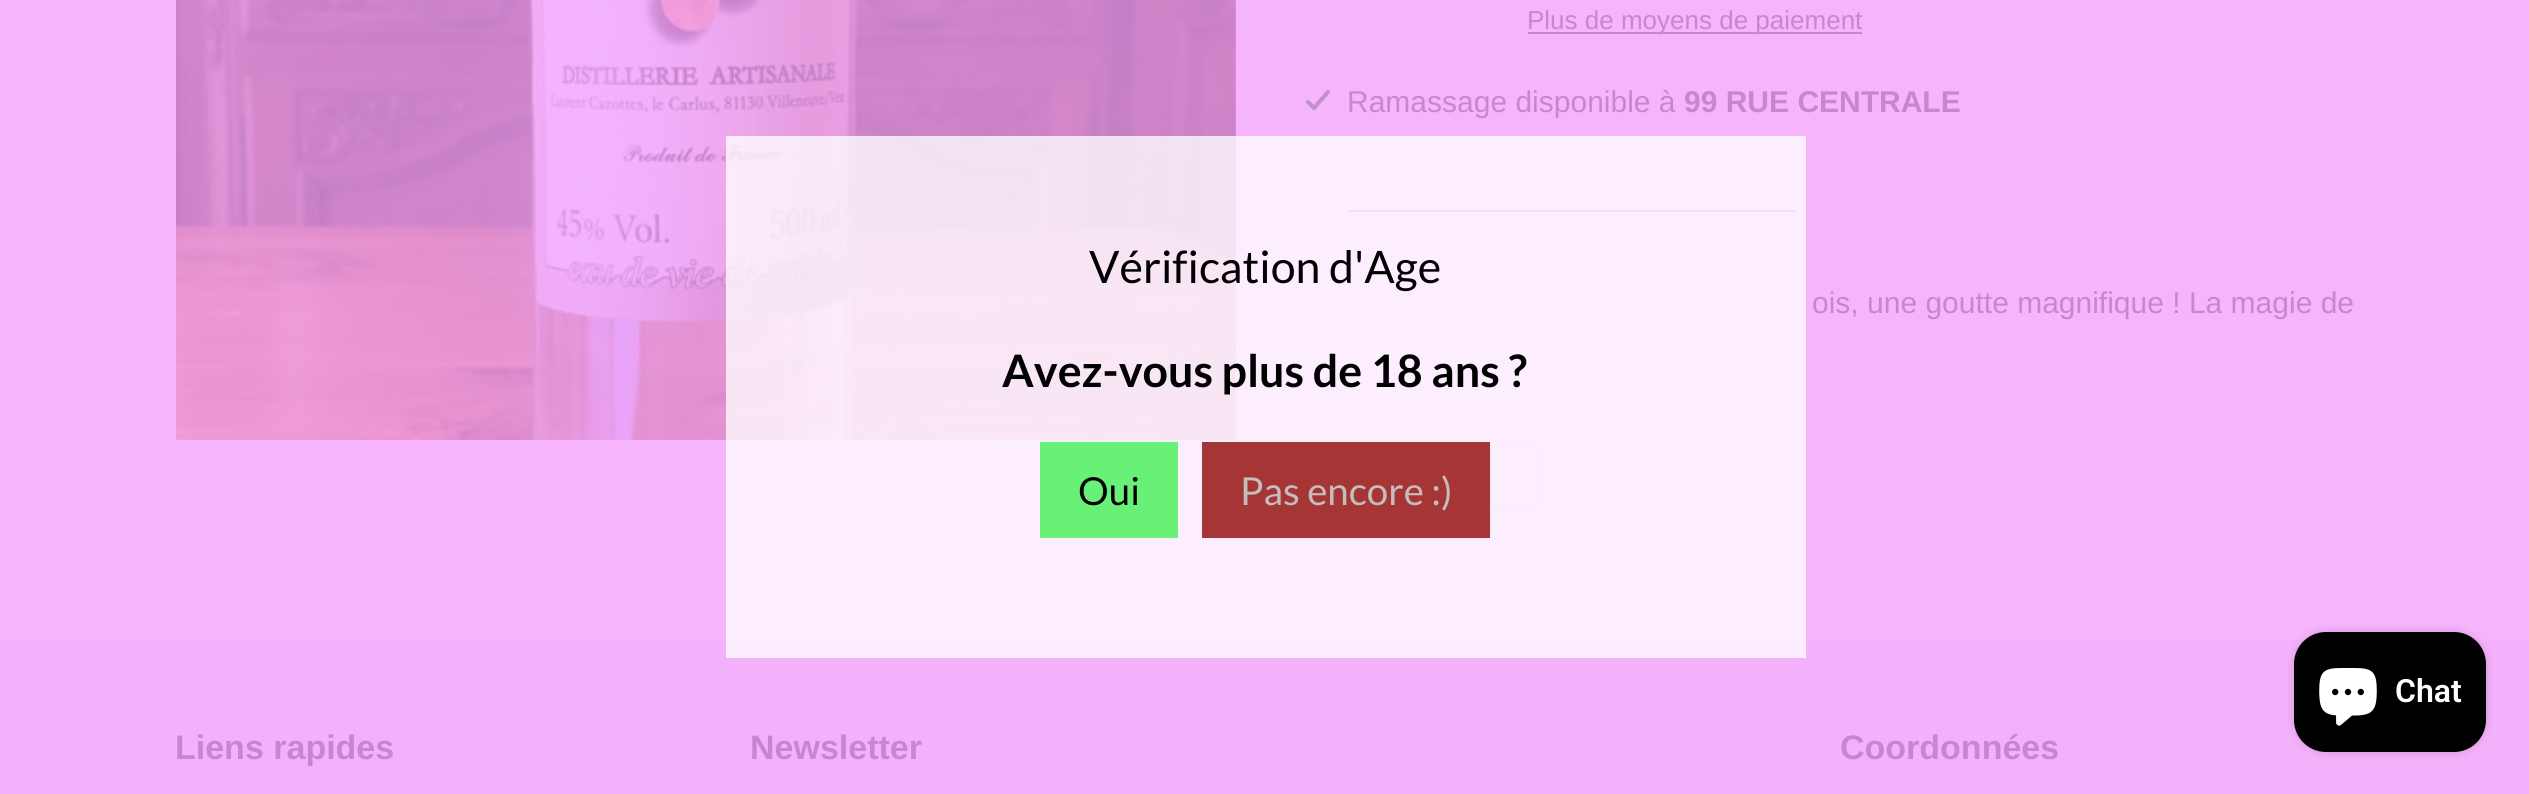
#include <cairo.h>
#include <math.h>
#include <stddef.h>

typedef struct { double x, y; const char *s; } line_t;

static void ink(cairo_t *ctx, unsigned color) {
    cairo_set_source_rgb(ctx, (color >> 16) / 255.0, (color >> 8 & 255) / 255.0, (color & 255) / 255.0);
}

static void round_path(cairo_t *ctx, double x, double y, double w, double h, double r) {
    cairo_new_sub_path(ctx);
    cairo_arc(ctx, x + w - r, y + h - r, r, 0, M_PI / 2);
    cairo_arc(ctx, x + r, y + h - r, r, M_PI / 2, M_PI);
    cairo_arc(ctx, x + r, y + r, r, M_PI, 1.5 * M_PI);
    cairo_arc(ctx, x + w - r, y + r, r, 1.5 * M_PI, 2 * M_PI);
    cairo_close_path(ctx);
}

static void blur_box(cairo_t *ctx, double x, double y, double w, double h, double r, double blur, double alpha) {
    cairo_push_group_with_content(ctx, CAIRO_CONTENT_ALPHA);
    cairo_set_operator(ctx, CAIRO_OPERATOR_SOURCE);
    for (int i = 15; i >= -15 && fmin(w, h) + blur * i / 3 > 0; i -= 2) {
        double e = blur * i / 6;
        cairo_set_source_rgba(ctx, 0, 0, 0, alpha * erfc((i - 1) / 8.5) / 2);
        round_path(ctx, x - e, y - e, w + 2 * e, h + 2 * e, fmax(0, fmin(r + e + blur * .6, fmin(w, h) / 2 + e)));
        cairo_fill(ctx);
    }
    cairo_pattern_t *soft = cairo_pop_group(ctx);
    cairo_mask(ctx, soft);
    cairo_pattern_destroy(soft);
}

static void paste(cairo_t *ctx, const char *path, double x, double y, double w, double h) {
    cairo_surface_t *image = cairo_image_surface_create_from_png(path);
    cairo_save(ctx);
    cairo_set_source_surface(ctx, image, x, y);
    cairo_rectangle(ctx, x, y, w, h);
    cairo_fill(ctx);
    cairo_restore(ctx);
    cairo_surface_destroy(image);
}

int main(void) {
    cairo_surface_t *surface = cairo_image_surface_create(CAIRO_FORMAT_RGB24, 2529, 794);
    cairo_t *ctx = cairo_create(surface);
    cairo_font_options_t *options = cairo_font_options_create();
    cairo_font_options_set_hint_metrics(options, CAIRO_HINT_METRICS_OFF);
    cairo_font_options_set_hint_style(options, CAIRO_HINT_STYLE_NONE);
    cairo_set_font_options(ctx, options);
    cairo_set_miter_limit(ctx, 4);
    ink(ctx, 0xF6B4FD);
    cairo_paint(ctx);
    paste(ctx, "media/1.png", 176, 0, 1060, 440);
    ink(ctx, 0xC886D0);
    cairo_rectangle(ctx, 1528, 32, 334, 2);
    cairo_fill(ctx);
    cairo_select_font_face(ctx, "Liberation Sans", CAIRO_FONT_SLANT_NORMAL, CAIRO_FONT_WEIGHT_NORMAL);
    cairo_set_font_size(ctx, 26);
    cairo_move_to(ctx, 1527, 29);
    cairo_show_text(ctx, "Plus de moyens de paiement");
    paste(ctx, "media/2.png", 1306, 90, 24, 20);
    cairo_set_font_size(ctx, 30);
    cairo_move_to(ctx, 1347, 112);
    cairo_show_text(ctx, "Ramassage disponible à");
    cairo_select_font_face(ctx, "Liberation Sans", CAIRO_FONT_SLANT_NORMAL, CAIRO_FONT_WEIGHT_BOLD);
    cairo_move_to(ctx, 1684, 112);
    cairo_show_text(ctx, "99 RUE CENTRALE");
    cairo_rectangle(ctx, 1348, 210, 448, 2);
    cairo_fill(ctx);
    cairo_select_font_face(ctx, "Liberation Sans", CAIRO_FONT_SLANT_NORMAL, CAIRO_FONT_WEIGHT_NORMAL);
    cairo_move_to(ctx, 1812, 313);
    cairo_show_text(ctx, "ois, une goutte magnifique ! La magie de");
    round_path(ctx, 1297, 443, 240, 66, 3);
    ink(ctx, 0xF1AFF9);
    cairo_stroke(ctx);
    ink(ctx, 0xF4B1FB);
    cairo_rectangle(ctx, 0, 640, 2529, 154);
    cairo_fill(ctx);
    cairo_select_font_face(ctx, "Liberation Sans", CAIRO_FONT_SLANT_NORMAL, CAIRO_FONT_WEIGHT_BOLD);
    cairo_set_font_size(ctx, 34);
    ink(ctx, 0xC886D0);
    {
        static const line_t items[] = {
            {175, 759, "Liens rapides"},
            {750, 759, "Newsletter"},
            {1840, 759, "Coordonnées"},
        };
        for (size_t i = 0; i < sizeof items / sizeof *items; i++) {
            cairo_move_to(ctx, items[i].x, items[i].y);
            cairo_show_text(ctx, items[i].s);
        }
    }
    cairo_set_source_rgba(ctx, 1, 1, 1, 0.77);
    cairo_rectangle(ctx, 726, 136, 1080, 522);
    cairo_fill(ctx);
    cairo_select_font_face(ctx, "Lato", CAIRO_FONT_SLANT_NORMAL, CAIRO_FONT_WEIGHT_NORMAL);
    cairo_set_font_size(ctx, 44.75);
    ink(ctx, 0x000000);
    cairo_move_to(ctx, 1089, 283);
    cairo_show_text(ctx, "Vérification d'Age");
    cairo_select_font_face(ctx, "Lato", CAIRO_FONT_SLANT_NORMAL, CAIRO_FONT_WEIGHT_BOLD);
    cairo_move_to(ctx, 1002, 387);
    cairo_show_text(ctx, "Avez-vous plus de 18 ans ?");
    ink(ctx, 0x67F277);
    cairo_rectangle(ctx, 1040, 442, 138, 96);
    cairo_fill(ctx);
    cairo_select_font_face(ctx, "Lato", CAIRO_FONT_SLANT_NORMAL, CAIRO_FONT_WEIGHT_NORMAL);
    cairo_set_font_size(ctx, 38.5);
    ink(ctx, 0x000000);
    cairo_move_to(ctx, 1078, 505);
    cairo_show_text(ctx, "Oui");
    ink(ctx, 0xA63636);
    cairo_rectangle(ctx, 1202, 442, 288, 96);
    cairo_fill(ctx);
    ink(ctx, 0xC5BDBD);
    cairo_move_to(ctx, 1240, 505);
    cairo_show_text(ctx, "Pas encore :)");
    ink(ctx, 0x000000);
    blur_box(ctx, 2294, 632, 192, 120, 32, 5, 0.15);
    ink(ctx, 0x000000);
    round_path(ctx, 2294, 632, 192, 120, 32);
    cairo_fill(ctx);
    paste(ctx, "media/3.png", 2319, 668, 58, 58);
    cairo_select_font_face(ctx, "Roboto SemiBold", CAIRO_FONT_SLANT_NORMAL, CAIRO_FONT_WEIGHT_NORMAL);
    cairo_set_font_size(ctx, 32);
    ink(ctx, 0xFFFFFF);
    cairo_move_to(ctx, 2395, 702);
    cairo_show_text(ctx, "Chat");
    cairo_surface_write_to_png(surface, "image.png");
    cairo_font_options_destroy(options);
    cairo_destroy(ctx);
    cairo_surface_destroy(surface);
    return 0;
}
